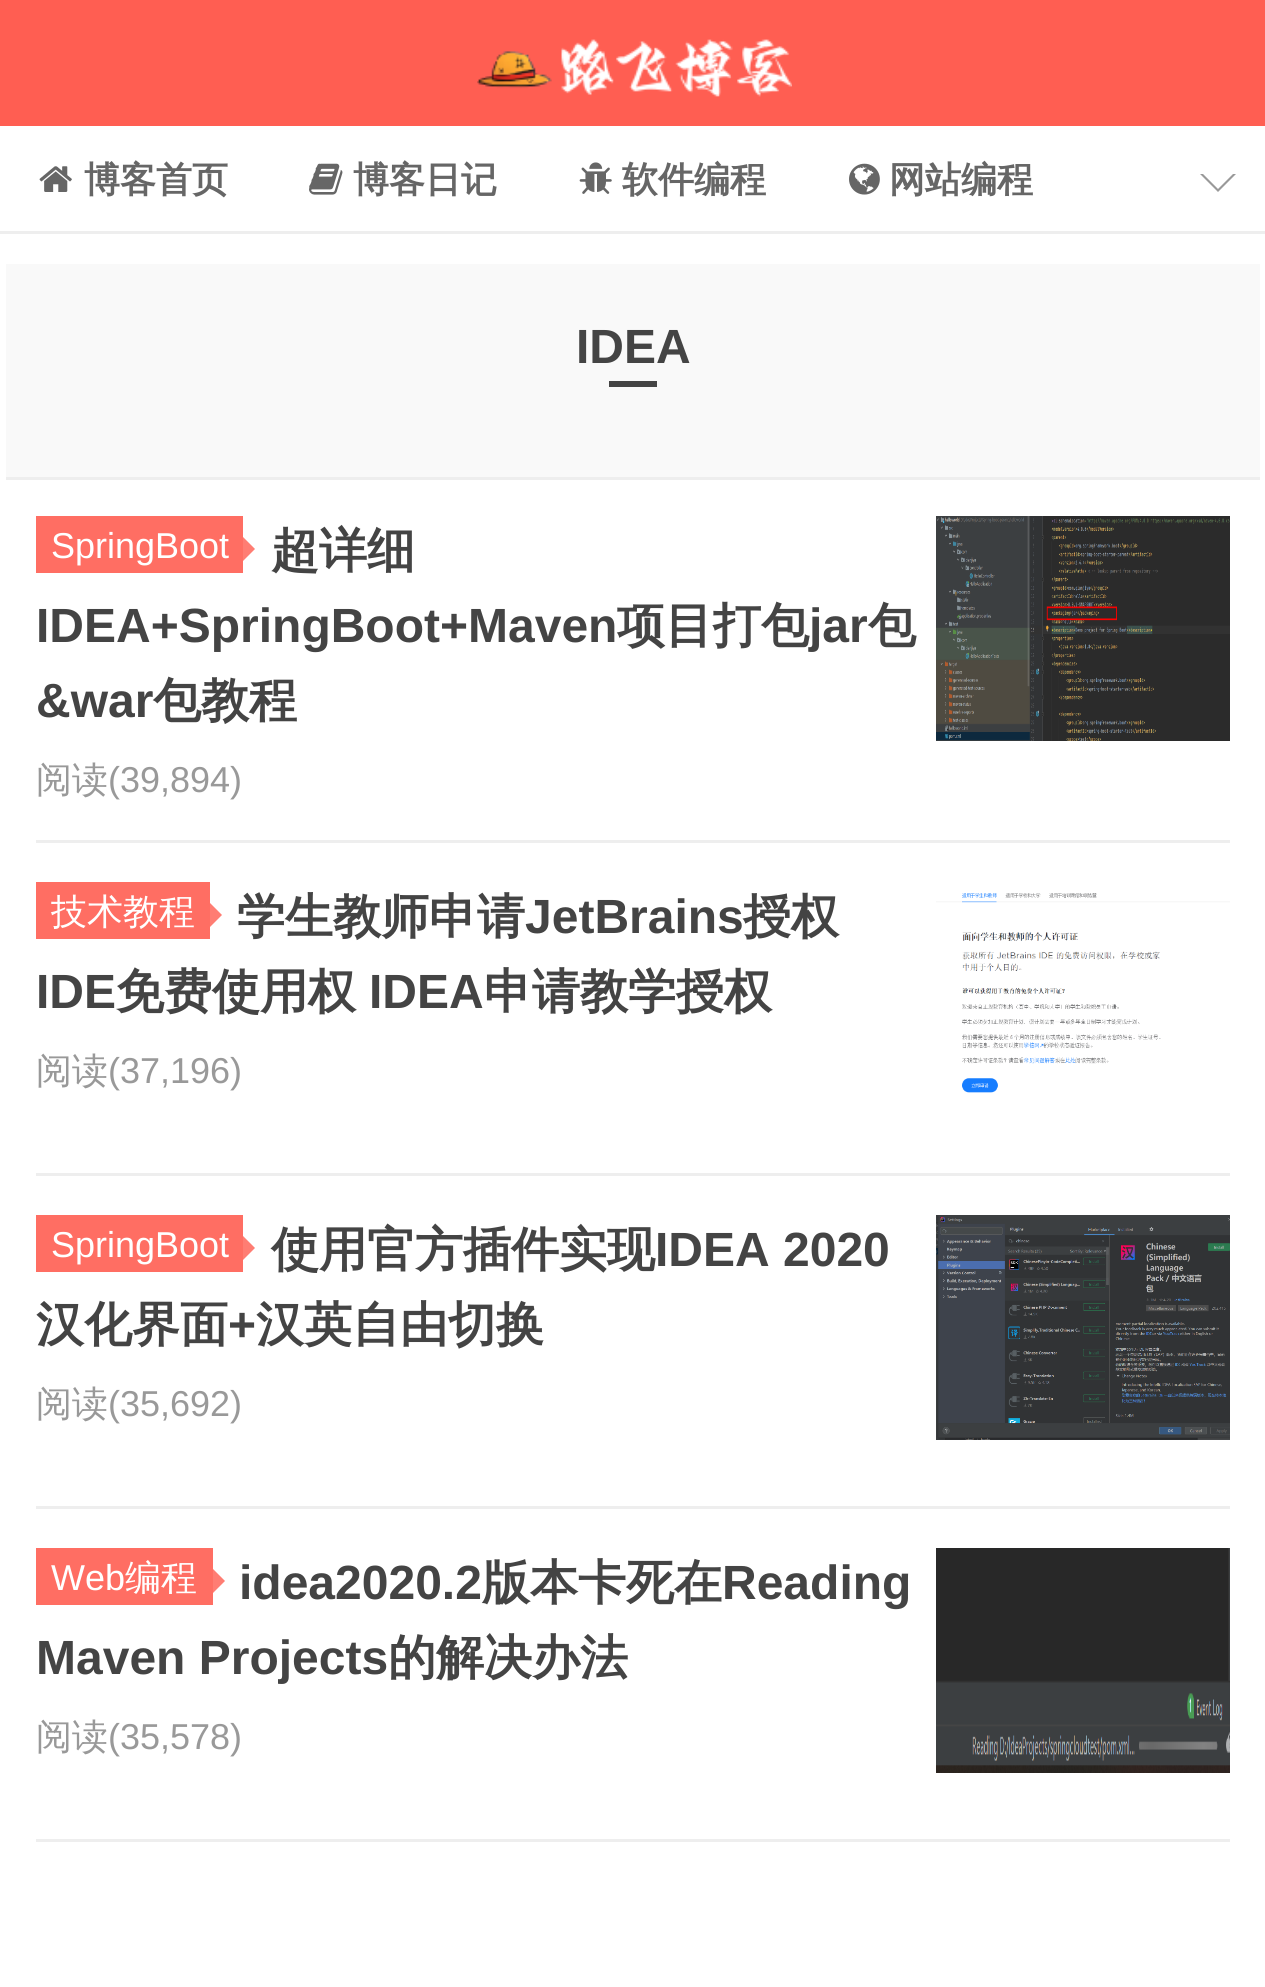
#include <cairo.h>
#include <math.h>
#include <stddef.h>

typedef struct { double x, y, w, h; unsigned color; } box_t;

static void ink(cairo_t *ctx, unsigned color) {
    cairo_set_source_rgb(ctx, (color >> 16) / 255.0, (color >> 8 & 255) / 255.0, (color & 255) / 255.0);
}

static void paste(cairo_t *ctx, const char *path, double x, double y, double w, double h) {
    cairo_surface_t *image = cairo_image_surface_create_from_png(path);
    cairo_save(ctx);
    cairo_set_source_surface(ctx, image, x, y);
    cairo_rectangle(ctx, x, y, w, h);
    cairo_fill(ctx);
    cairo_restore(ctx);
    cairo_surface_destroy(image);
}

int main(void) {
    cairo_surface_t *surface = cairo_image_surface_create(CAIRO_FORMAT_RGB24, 1265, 1987);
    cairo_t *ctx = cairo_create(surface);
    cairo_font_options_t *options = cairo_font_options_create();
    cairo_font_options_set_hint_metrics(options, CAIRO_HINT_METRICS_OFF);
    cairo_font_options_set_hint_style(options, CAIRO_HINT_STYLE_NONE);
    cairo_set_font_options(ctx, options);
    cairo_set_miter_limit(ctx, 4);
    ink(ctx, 0xFFFFFF);
    cairo_paint(ctx);
    ink(ctx, 0xFF5E52);
    cairo_rectangle(ctx, 0, 0, 1265, 126);
    cairo_fill(ctx);
    paste(ctx, "media/1.png", 477, 39, 315, 58);
    paste(ctx, "media/2.png", 39, 166, 33, 26);
    cairo_select_font_face(ctx, "WenQuanYi Zen Hei", CAIRO_FONT_SLANT_NORMAL, CAIRO_FONT_WEIGHT_BOLD);
    cairo_set_font_size(ctx, 36);
    ink(ctx, 0x666666);
    cairo_move_to(ctx, 84, 192);
    cairo_show_text(ctx, "博客首页");
    paste(ctx, "media/3.png", 309, 163, 34, 32);
    cairo_move_to(ctx, 353, 192);
    cairo_show_text(ctx, "博客日记");
    paste(ctx, "media/4.png", 579, 162, 33, 32);
    cairo_move_to(ctx, 622, 192);
    cairo_show_text(ctx, "软件编程");
    paste(ctx, "media/5.png", 849, 163, 31, 32);
    cairo_move_to(ctx, 889, 192);
    cairo_show_text(ctx, "网站编程");
    ink(ctx, 0x999999);
    cairo_new_path(ctx);
    cairo_move_to(ctx, 1200, 174);
    cairo_line_to(ctx, 1236, 174);
    cairo_line_to(ctx, 1218, 192);
    cairo_close_path(ctx);
    cairo_fill(ctx);
    ink(ctx, 0xFFFFFF);
    cairo_new_path(ctx);
    cairo_move_to(ctx, 1200, 171);
    cairo_line_to(ctx, 1236, 171);
    cairo_line_to(ctx, 1218, 189);
    cairo_close_path(ctx);
    cairo_fill(ctx);
    {
        static const box_t items[] = {
            {0, 231, 1265, 3, 0xEEEEEE},
            {6, 264, 1254, 213, 0xF9F9F9},
            {6, 477, 1254, 3, 0xEEEEEE},
        };
        for (size_t i = 0; i < sizeof items / sizeof *items; i++) {
            ink(ctx, items[i].color);
            cairo_rectangle(ctx, items[i].x, items[i].y, items[i].w, items[i].h);
            cairo_fill(ctx);
        }
    }
    cairo_select_font_face(ctx, "Liberation Sans", CAIRO_FONT_SLANT_NORMAL, CAIRO_FONT_WEIGHT_BOLD);
    cairo_set_font_size(ctx, 48);
    ink(ctx, 0x444444);
    cairo_move_to(ctx, 576, 363);
    cairo_show_text(ctx, "IDEA");
    {
        static const box_t items[] = {
            {609, 381, 48, 6, 0x444444},
            {36, 840, 1194, 3, 0xEEEEEE},
            {36, 516, 207, 57, 0xFF6E63},
        };
        for (size_t i = 0; i < sizeof items / sizeof *items; i++) {
            ink(ctx, items[i].color);
            cairo_rectangle(ctx, items[i].x, items[i].y, items[i].w, items[i].h);
            cairo_fill(ctx);
        }
    }
    cairo_select_font_face(ctx, "Liberation Sans", CAIRO_FONT_SLANT_NORMAL, CAIRO_FONT_WEIGHT_NORMAL);
    cairo_set_font_size(ctx, 36);
    ink(ctx, 0xFFFFFF);
    cairo_move_to(ctx, 51, 558);
    cairo_show_text(ctx, "SpringBoot");
    ink(ctx, 0xFF7D73);
    cairo_new_path(ctx);
    cairo_move_to(ctx, 243, 561);
    cairo_line_to(ctx, 243, 537);
    cairo_line_to(ctx, 255, 549);
    cairo_close_path(ctx);
    cairo_fill(ctx);
    cairo_select_font_face(ctx, "WenQuanYi Zen Hei", CAIRO_FONT_SLANT_NORMAL, CAIRO_FONT_WEIGHT_BOLD);
    cairo_set_font_size(ctx, 48);
    ink(ctx, 0x444444);
    cairo_move_to(ctx, 271, 567);
    cairo_show_text(ctx, "超详细");
    cairo_select_font_face(ctx, "Liberation Sans", CAIRO_FONT_SLANT_NORMAL, CAIRO_FONT_WEIGHT_BOLD);
    cairo_move_to(ctx, 36, 642);
    cairo_show_text(ctx, "IDEA+SpringBoot+Maven");
    cairo_select_font_face(ctx, "WenQuanYi Zen Hei", CAIRO_FONT_SLANT_NORMAL, CAIRO_FONT_WEIGHT_BOLD);
    cairo_move_to(ctx, 617, 642);
    cairo_show_text(ctx, "项目打包");
    cairo_select_font_face(ctx, "Liberation Sans", CAIRO_FONT_SLANT_NORMAL, CAIRO_FONT_WEIGHT_BOLD);
    cairo_move_to(ctx, 809, 642);
    cairo_show_text(ctx, "jar");
    cairo_select_font_face(ctx, "WenQuanYi Zen Hei", CAIRO_FONT_SLANT_NORMAL, CAIRO_FONT_WEIGHT_BOLD);
    cairo_move_to(ctx, 868, 642);
    cairo_show_text(ctx, "包");
    cairo_select_font_face(ctx, "Liberation Sans", CAIRO_FONT_SLANT_NORMAL, CAIRO_FONT_WEIGHT_BOLD);
    cairo_move_to(ctx, 36, 717);
    cairo_show_text(ctx, "&war");
    cairo_select_font_face(ctx, "WenQuanYi Zen Hei", CAIRO_FONT_SLANT_NORMAL, CAIRO_FONT_WEIGHT_BOLD);
    cairo_move_to(ctx, 153, 717);
    cairo_show_text(ctx, "包教程");
    paste(ctx, "media/6.png", 936, 516, 294, 225);
    cairo_select_font_face(ctx, "WenQuanYi Zen Hei Medium", CAIRO_FONT_SLANT_NORMAL, CAIRO_FONT_WEIGHT_NORMAL);
    cairo_set_font_size(ctx, 36);
    ink(ctx, 0x999999);
    cairo_move_to(ctx, 36, 792);
    cairo_show_text(ctx, "阅读");
    cairo_select_font_face(ctx, "Liberation Sans", CAIRO_FONT_SLANT_NORMAL, CAIRO_FONT_WEIGHT_NORMAL);
    cairo_move_to(ctx, 108, 792);
    cairo_show_text(ctx, "(39,894)");
    ink(ctx, 0xEEEEEE);
    cairo_rectangle(ctx, 36, 1173, 1194, 3);
    cairo_fill(ctx);
    ink(ctx, 0xFF6E63);
    cairo_rectangle(ctx, 36, 882, 174, 57);
    cairo_fill(ctx);
    cairo_select_font_face(ctx, "WenQuanYi Zen Hei Medium", CAIRO_FONT_SLANT_NORMAL, CAIRO_FONT_WEIGHT_NORMAL);
    ink(ctx, 0xFFFFFF);
    cairo_move_to(ctx, 51, 924);
    cairo_show_text(ctx, "技术教程");
    ink(ctx, 0xFF7D73);
    cairo_new_path(ctx);
    cairo_move_to(ctx, 210, 927);
    cairo_line_to(ctx, 210, 903);
    cairo_line_to(ctx, 222, 915);
    cairo_close_path(ctx);
    cairo_fill(ctx);
    cairo_select_font_face(ctx, "WenQuanYi Zen Hei", CAIRO_FONT_SLANT_NORMAL, CAIRO_FONT_WEIGHT_BOLD);
    cairo_set_font_size(ctx, 48);
    ink(ctx, 0x444444);
    cairo_move_to(ctx, 237, 933);
    cairo_show_text(ctx, "学生教师申请");
    cairo_select_font_face(ctx, "Liberation Sans", CAIRO_FONT_SLANT_NORMAL, CAIRO_FONT_WEIGHT_BOLD);
    cairo_move_to(ctx, 525, 933);
    cairo_show_text(ctx, "JetBrains");
    cairo_select_font_face(ctx, "WenQuanYi Zen Hei", CAIRO_FONT_SLANT_NORMAL, CAIRO_FONT_WEIGHT_BOLD);
    cairo_move_to(ctx, 743, 933);
    cairo_show_text(ctx, "授权");
    cairo_select_font_face(ctx, "Liberation Sans", CAIRO_FONT_SLANT_NORMAL, CAIRO_FONT_WEIGHT_BOLD);
    cairo_move_to(ctx, 36, 1008);
    cairo_show_text(ctx, "IDE");
    cairo_select_font_face(ctx, "WenQuanYi Zen Hei", CAIRO_FONT_SLANT_NORMAL, CAIRO_FONT_WEIGHT_BOLD);
    cairo_move_to(ctx, 116, 1008);
    cairo_show_text(ctx, "免费使用权");
    cairo_select_font_face(ctx, "Liberation Sans", CAIRO_FONT_SLANT_NORMAL, CAIRO_FONT_WEIGHT_BOLD);
    cairo_move_to(ctx, 369, 1008);
    cairo_show_text(ctx, "IDEA");
    cairo_select_font_face(ctx, "WenQuanYi Zen Hei", CAIRO_FONT_SLANT_NORMAL, CAIRO_FONT_WEIGHT_BOLD);
    cairo_move_to(ctx, 484, 1008);
    cairo_show_text(ctx, "申请教学授权");
    paste(ctx, "media/7.png", 936, 893, 294, 200);
    cairo_select_font_face(ctx, "WenQuanYi Zen Hei Medium", CAIRO_FONT_SLANT_NORMAL, CAIRO_FONT_WEIGHT_NORMAL);
    cairo_set_font_size(ctx, 36);
    ink(ctx, 0x999999);
    cairo_move_to(ctx, 36, 1083);
    cairo_show_text(ctx, "阅读");
    cairo_select_font_face(ctx, "Liberation Sans", CAIRO_FONT_SLANT_NORMAL, CAIRO_FONT_WEIGHT_NORMAL);
    cairo_move_to(ctx, 108, 1083);
    cairo_show_text(ctx, "(37,196)");
    ink(ctx, 0xEEEEEE);
    cairo_rectangle(ctx, 36, 1506, 1194, 3);
    cairo_fill(ctx);
    ink(ctx, 0xFF6E63);
    cairo_rectangle(ctx, 36, 1215, 207, 57);
    cairo_fill(ctx);
    ink(ctx, 0xFFFFFF);
    cairo_move_to(ctx, 51, 1257);
    cairo_show_text(ctx, "SpringBoot");
    ink(ctx, 0xFF7D73);
    cairo_new_path(ctx);
    cairo_move_to(ctx, 243, 1260);
    cairo_line_to(ctx, 243, 1236);
    cairo_line_to(ctx, 255, 1248);
    cairo_close_path(ctx);
    cairo_fill(ctx);
    cairo_select_font_face(ctx, "WenQuanYi Zen Hei", CAIRO_FONT_SLANT_NORMAL, CAIRO_FONT_WEIGHT_BOLD);
    cairo_set_font_size(ctx, 48);
    ink(ctx, 0x444444);
    cairo_move_to(ctx, 271, 1266);
    cairo_show_text(ctx, "使用官方插件实现");
    cairo_select_font_face(ctx, "Liberation Sans", CAIRO_FONT_SLANT_NORMAL, CAIRO_FONT_WEIGHT_BOLD);
    cairo_move_to(ctx, 655, 1266);
    cairo_show_text(ctx, "IDEA 2020");
    cairo_select_font_face(ctx, "WenQuanYi Zen Hei", CAIRO_FONT_SLANT_NORMAL, CAIRO_FONT_WEIGHT_BOLD);
    cairo_move_to(ctx, 36, 1341);
    cairo_show_text(ctx, "汉化界面");
    cairo_select_font_face(ctx, "Liberation Sans", CAIRO_FONT_SLANT_NORMAL, CAIRO_FONT_WEIGHT_BOLD);
    cairo_move_to(ctx, 228, 1341);
    cairo_show_text(ctx, "+");
    cairo_select_font_face(ctx, "WenQuanYi Zen Hei", CAIRO_FONT_SLANT_NORMAL, CAIRO_FONT_WEIGHT_BOLD);
    cairo_move_to(ctx, 256, 1341);
    cairo_show_text(ctx, "汉英自由切换");
    paste(ctx, "media/8.png", 936, 1215, 294, 225);
    cairo_select_font_face(ctx, "WenQuanYi Zen Hei Medium", CAIRO_FONT_SLANT_NORMAL, CAIRO_FONT_WEIGHT_NORMAL);
    cairo_set_font_size(ctx, 36);
    ink(ctx, 0x999999);
    cairo_move_to(ctx, 36, 1416);
    cairo_show_text(ctx, "阅读");
    cairo_select_font_face(ctx, "Liberation Sans", CAIRO_FONT_SLANT_NORMAL, CAIRO_FONT_WEIGHT_NORMAL);
    cairo_move_to(ctx, 108, 1416);
    cairo_show_text(ctx, "(35,692)");
    ink(ctx, 0xEEEEEE);
    cairo_rectangle(ctx, 36, 1839, 1194, 3);
    cairo_fill(ctx);
    ink(ctx, 0xFF6E63);
    cairo_rectangle(ctx, 36, 1548, 177, 57);
    cairo_fill(ctx);
    ink(ctx, 0xFFFFFF);
    cairo_move_to(ctx, 51, 1590);
    cairo_show_text(ctx, "Web");
    cairo_select_font_face(ctx, "WenQuanYi Zen Hei Medium", CAIRO_FONT_SLANT_NORMAL, CAIRO_FONT_WEIGHT_NORMAL);
    cairo_move_to(ctx, 125, 1590);
    cairo_show_text(ctx, "编程");
    ink(ctx, 0xFF7D73);
    cairo_new_path(ctx);
    cairo_move_to(ctx, 213, 1593);
    cairo_line_to(ctx, 213, 1569);
    cairo_line_to(ctx, 225, 1581);
    cairo_close_path(ctx);
    cairo_fill(ctx);
    cairo_select_font_face(ctx, "Liberation Sans", CAIRO_FONT_SLANT_NORMAL, CAIRO_FONT_WEIGHT_BOLD);
    cairo_set_font_size(ctx, 48);
    ink(ctx, 0x444444);
    cairo_move_to(ctx, 239, 1599);
    cairo_show_text(ctx, "idea2020.2");
    cairo_select_font_face(ctx, "WenQuanYi Zen Hei", CAIRO_FONT_SLANT_NORMAL, CAIRO_FONT_WEIGHT_BOLD);
    cairo_move_to(ctx, 482, 1599);
    cairo_show_text(ctx, "版本卡死在");
    cairo_select_font_face(ctx, "Liberation Sans", CAIRO_FONT_SLANT_NORMAL, CAIRO_FONT_WEIGHT_BOLD);
    cairo_move_to(ctx, 722, 1599);
    cairo_show_text(ctx, "Reading");
    cairo_move_to(ctx, 36, 1674);
    cairo_show_text(ctx, "Maven Projects");
    cairo_select_font_face(ctx, "WenQuanYi Zen Hei", CAIRO_FONT_SLANT_NORMAL, CAIRO_FONT_WEIGHT_BOLD);
    cairo_move_to(ctx, 388, 1674);
    cairo_show_text(ctx, "的解决办法");
    paste(ctx, "media/9.png", 936, 1548, 294, 225);
    cairo_select_font_face(ctx, "WenQuanYi Zen Hei Medium", CAIRO_FONT_SLANT_NORMAL, CAIRO_FONT_WEIGHT_NORMAL);
    cairo_set_font_size(ctx, 36);
    ink(ctx, 0x999999);
    cairo_move_to(ctx, 36, 1749);
    cairo_show_text(ctx, "阅读");
    cairo_select_font_face(ctx, "Liberation Sans", CAIRO_FONT_SLANT_NORMAL, CAIRO_FONT_WEIGHT_NORMAL);
    cairo_move_to(ctx, 108, 1749);
    cairo_show_text(ctx, "(35,578)");
    cairo_surface_write_to_png(surface, "image.png");
    cairo_font_options_destroy(options);
    cairo_destroy(ctx);
    cairo_surface_destroy(surface);
    return 0;
}
